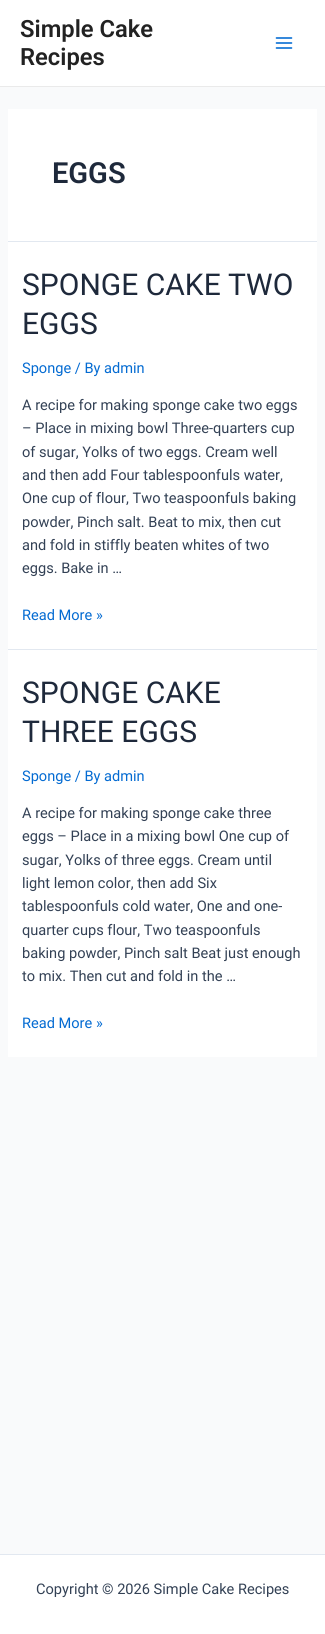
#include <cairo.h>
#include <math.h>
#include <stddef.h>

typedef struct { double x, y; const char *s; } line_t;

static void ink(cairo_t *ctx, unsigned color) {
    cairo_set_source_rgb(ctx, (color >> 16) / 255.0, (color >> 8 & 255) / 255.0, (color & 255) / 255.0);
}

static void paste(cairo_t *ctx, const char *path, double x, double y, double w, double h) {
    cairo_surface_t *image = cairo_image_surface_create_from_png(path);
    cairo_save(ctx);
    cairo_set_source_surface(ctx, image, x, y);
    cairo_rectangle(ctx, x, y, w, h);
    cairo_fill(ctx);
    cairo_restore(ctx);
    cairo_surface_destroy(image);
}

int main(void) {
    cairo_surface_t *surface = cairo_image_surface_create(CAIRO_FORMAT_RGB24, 325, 1634);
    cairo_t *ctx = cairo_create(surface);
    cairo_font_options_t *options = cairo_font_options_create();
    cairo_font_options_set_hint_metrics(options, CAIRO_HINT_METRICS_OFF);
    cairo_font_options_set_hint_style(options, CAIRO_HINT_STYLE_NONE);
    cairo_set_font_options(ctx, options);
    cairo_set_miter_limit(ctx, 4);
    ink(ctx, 0xF9FAFB);
    cairo_paint(ctx);
    ink(ctx, 0xFFFFFF);
    cairo_rectangle(ctx, 0, 0, 325, 86);
    cairo_fill(ctx);
    ink(ctx, 0xEAEAEA);
    cairo_rectangle(ctx, 0, 86, 325, 1);
    cairo_fill(ctx);
    cairo_select_font_face(ctx, "Roboto SemiBold", CAIRO_FONT_SLANT_NORMAL, CAIRO_FONT_WEIGHT_NORMAL);
    cairo_set_font_size(ctx, 23.75);
    ink(ctx, 0x222222);
    cairo_move_to(ctx, 20, 37);
    cairo_show_text(ctx, "Simple Cake");
    cairo_move_to(ctx, 20, 65);
    cairo_show_text(ctx, "Recipes");
    paste(ctx, "media/1.png", 275, 37, 18, 12);
    ink(ctx, 0xFFFFFF);
    cairo_rectangle(ctx, 8, 109, 309, 132);
    cairo_fill(ctx);
    ink(ctx, 0xE2E8F0);
    cairo_rectangle(ctx, 8, 241, 309, 1);
    cairo_fill(ctx);
    cairo_set_font_size(ctx, 29);
    ink(ctx, 0x1E293B);
    cairo_move_to(ctx, 52, 183);
    cairo_show_text(ctx, "EGGS");
    ink(ctx, 0xFFFFFF);
    cairo_rectangle(ctx, 8, 242, 309, 407);
    cairo_fill(ctx);
    ink(ctx, 0xE2E8F0);
    cairo_rectangle(ctx, 8, 649, 309, 1);
    cairo_fill(ctx);
    cairo_select_font_face(ctx, "Roboto", CAIRO_FONT_SLANT_NORMAL, CAIRO_FONT_WEIGHT_NORMAL);
    cairo_set_font_size(ctx, 30);
    ink(ctx, 0x1E293B);
    cairo_move_to(ctx, 22, 295);
    cairo_show_text(ctx, "SPONGE CAKE TWO");
    cairo_move_to(ctx, 22, 334);
    cairo_show_text(ctx, "EGGS");
    cairo_set_font_size(ctx, 14.6);
    ink(ctx, 0x046BD2);
    cairo_move_to(ctx, 22, 373);
    cairo_show_text(ctx, "Sponge / By admin");
    ink(ctx, 0x334155);
    {
        static const line_t items[] = {
            {22, 410, "A recipe for making sponge cake two eggs"},
            {22, 433, "– Place in mixing bowl Three-quarters cup"},
            {22, 457, "of sugar, Yolks of two eggs. Cream well"},
            {22, 480, "and then add Four tablespoonfuls water,"},
            {22, 503, "One cup of flour, Two teaspoonfuls baking"},
            {22, 527, "powder, Pinch salt. Beat to mix, then cut"},
            {22, 550, "and fold in stiffly beaten whites of two"},
            {22, 573, "eggs. Bake in …"},
        };
        for (size_t i = 0; i < sizeof items / sizeof *items; i++) {
            cairo_move_to(ctx, items[i].x, items[i].y);
            cairo_show_text(ctx, items[i].s);
        }
    }
    ink(ctx, 0x046BD2);
    cairo_move_to(ctx, 22, 620);
    cairo_show_text(ctx, "Read More »");
    ink(ctx, 0xFFFFFF);
    cairo_rectangle(ctx, 8, 650, 309, 407);
    cairo_fill(ctx);
    cairo_set_font_size(ctx, 30);
    ink(ctx, 0x1E293B);
    cairo_move_to(ctx, 22, 703);
    cairo_show_text(ctx, "SPONGE CAKE");
    cairo_move_to(ctx, 22, 742);
    cairo_show_text(ctx, "THREE EGGS");
    cairo_set_font_size(ctx, 14.6);
    ink(ctx, 0x046BD2);
    cairo_move_to(ctx, 22, 781);
    cairo_show_text(ctx, "Sponge / By admin");
    ink(ctx, 0x334155);
    {
        static const line_t items[] = {
            {22, 818, "A recipe for making sponge cake three"},
            {22, 841, "eggs – Place in a mixing bowl One cup of"},
            {22, 865, "sugar, Yolks of three eggs. Cream until"},
            {22, 888, "light lemon color, then add Six"},
            {22, 911, "tablespoonfuls cold water, One and one-"},
            {22, 935, "quarter cups flour, Two teaspoonfuls"},
            {22, 958, "baking powder, Pinch salt Beat just enough"},
            {22, 981, "to mix. Then cut and fold in the …"},
        };
        for (size_t i = 0; i < sizeof items / sizeof *items; i++) {
            cairo_move_to(ctx, items[i].x, items[i].y);
            cairo_show_text(ctx, items[i].s);
        }
    }
    ink(ctx, 0x046BD2);
    cairo_move_to(ctx, 22, 1028);
    cairo_show_text(ctx, "Read More »");
    ink(ctx, 0xFFFFFF);
    cairo_rectangle(ctx, 0, 1555, 325, 79);
    cairo_fill(ctx);
    ink(ctx, 0xE2E8F0);
    cairo_rectangle(ctx, 0, 1554, 325, 1);
    cairo_fill(ctx);
    ink(ctx, 0x334155);
    cairo_move_to(ctx, 36, 1594);
    cairo_show_text(ctx, "Copyright © 2026 Simple Cake Recipes");
    cairo_surface_write_to_png(surface, "image.png");
    cairo_font_options_destroy(options);
    cairo_destroy(ctx);
    cairo_surface_destroy(surface);
    return 0;
}
